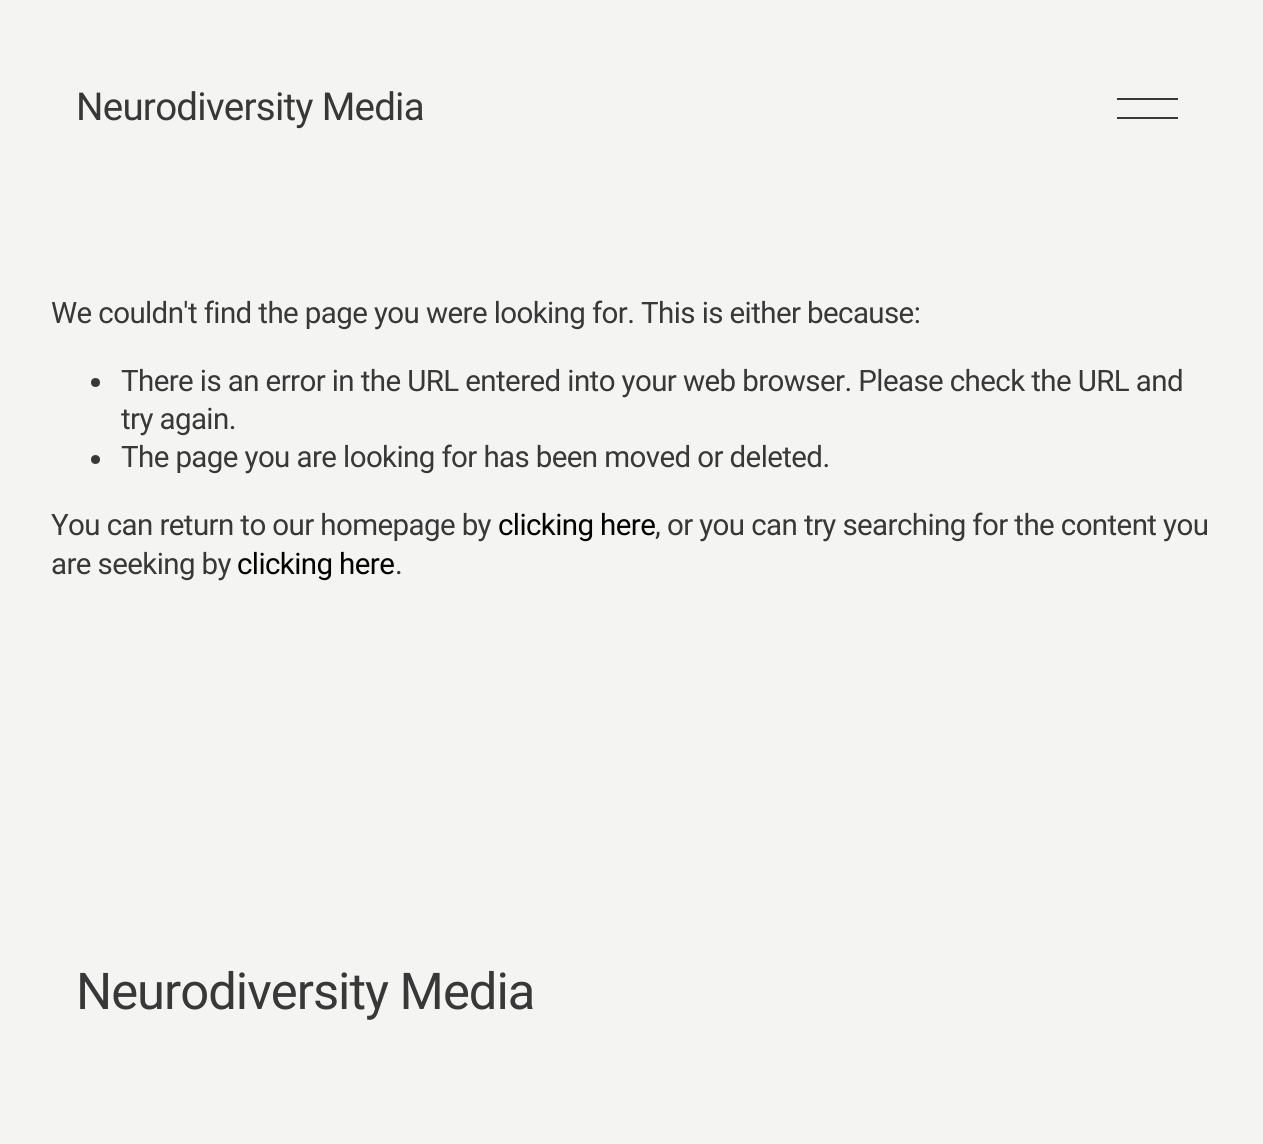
#include <cairo.h>
#include <math.h>
#include <stddef.h>


static void ink(cairo_t *ctx, unsigned color) {
    cairo_set_source_rgb(ctx, (color >> 16) / 255.0, (color >> 8 & 255) / 255.0, (color & 255) / 255.0);
}

static void write_spaced(cairo_t *ctx, double x, double y, const char *s, double letter, double word) {
    cairo_move_to(ctx, x, y);
    while (*s) {
        char ch[5] = {0};
        int n = 0;
        do ch[n++] = *s++; while ((*s & 0xC0) == 0x80);
        cairo_show_text(ctx, ch);
        cairo_rel_move_to(ctx, letter + word * (*ch == ' '), 0);
    }
}

int main(void) {
    cairo_surface_t *surface = cairo_image_surface_create(CAIRO_FORMAT_RGB24, 1263, 1144);
    cairo_t *ctx = cairo_create(surface);
    cairo_font_options_t *options = cairo_font_options_create();
    cairo_font_options_set_hint_metrics(options, CAIRO_HINT_METRICS_OFF);
    cairo_font_options_set_hint_style(options, CAIRO_HINT_STYLE_NONE);
    cairo_set_font_options(ctx, options);
    cairo_set_miter_limit(ctx, 4);
    ink(ctx, 0xF4F4F3);
    cairo_paint(ctx);
    cairo_select_font_face(ctx, "Roboto", CAIRO_FONT_SLANT_NORMAL, CAIRO_FONT_WEIGHT_NORMAL);
    cairo_set_font_size(ctx, 38.5);
    ink(ctx, 0x383838);
    write_spaced(ctx, 76, 120, "Neurodiversity Media", -0.75, 0);
    cairo_rectangle(ctx, 1117, 98, 61, 2);
    cairo_fill(ctx);
    cairo_rectangle(ctx, 1117, 117, 61, 2);
    cairo_fill(ctx);
    cairo_set_font_size(ctx, 29.5);
    write_spaced(ctx, 51, 323, "We couldn't find the page you were looking for. This is either because:", -0.6, 0);
    cairo_new_path(ctx);
    cairo_arc(ctx, 95.5, 382.5, 4.5, 0, 2 * M_PI);
    cairo_fill(ctx);
    write_spaced(ctx, 121, 391, "There is an error in the URL entered into your web browser. Please check the URL and", -0.6, 0);
    write_spaced(ctx, 121, 429, "try again.", -0.6, 0);
    cairo_new_path(ctx);
    cairo_arc(ctx, 95.5, 459.5, 4.5, 0, 2 * M_PI);
    cairo_fill(ctx);
    write_spaced(ctx, 121, 467, "The page you are looking for has been moved or deleted.", -0.6, 0);
    write_spaced(ctx, 51, 535, "You can return to our homepage by", -0.6, 0);
    ink(ctx, 0x000000);
    write_spaced(ctx, 498, 535, "clicking here", -0.6, 0);
    ink(ctx, 0x383838);
    write_spaced(ctx, 655, 535, ", or you can try searching for the content you", -0.6, 0);
    write_spaced(ctx, 51, 574, "are seeking by", -0.6, 0);
    ink(ctx, 0x000000);
    write_spaced(ctx, 237, 574, "clicking here", -0.6, 0);
    ink(ctx, 0x383838);
    write_spaced(ctx, 395, 574, ".", -0.6, 0);
    cairo_set_font_size(ctx, 50.75);
    write_spaced(ctx, 76, 1009, "Neurodiversity Media", -1, 0);
    cairo_surface_write_to_png(surface, "image.png");
    cairo_font_options_destroy(options);
    cairo_destroy(ctx);
    cairo_surface_destroy(surface);
    return 0;
}
